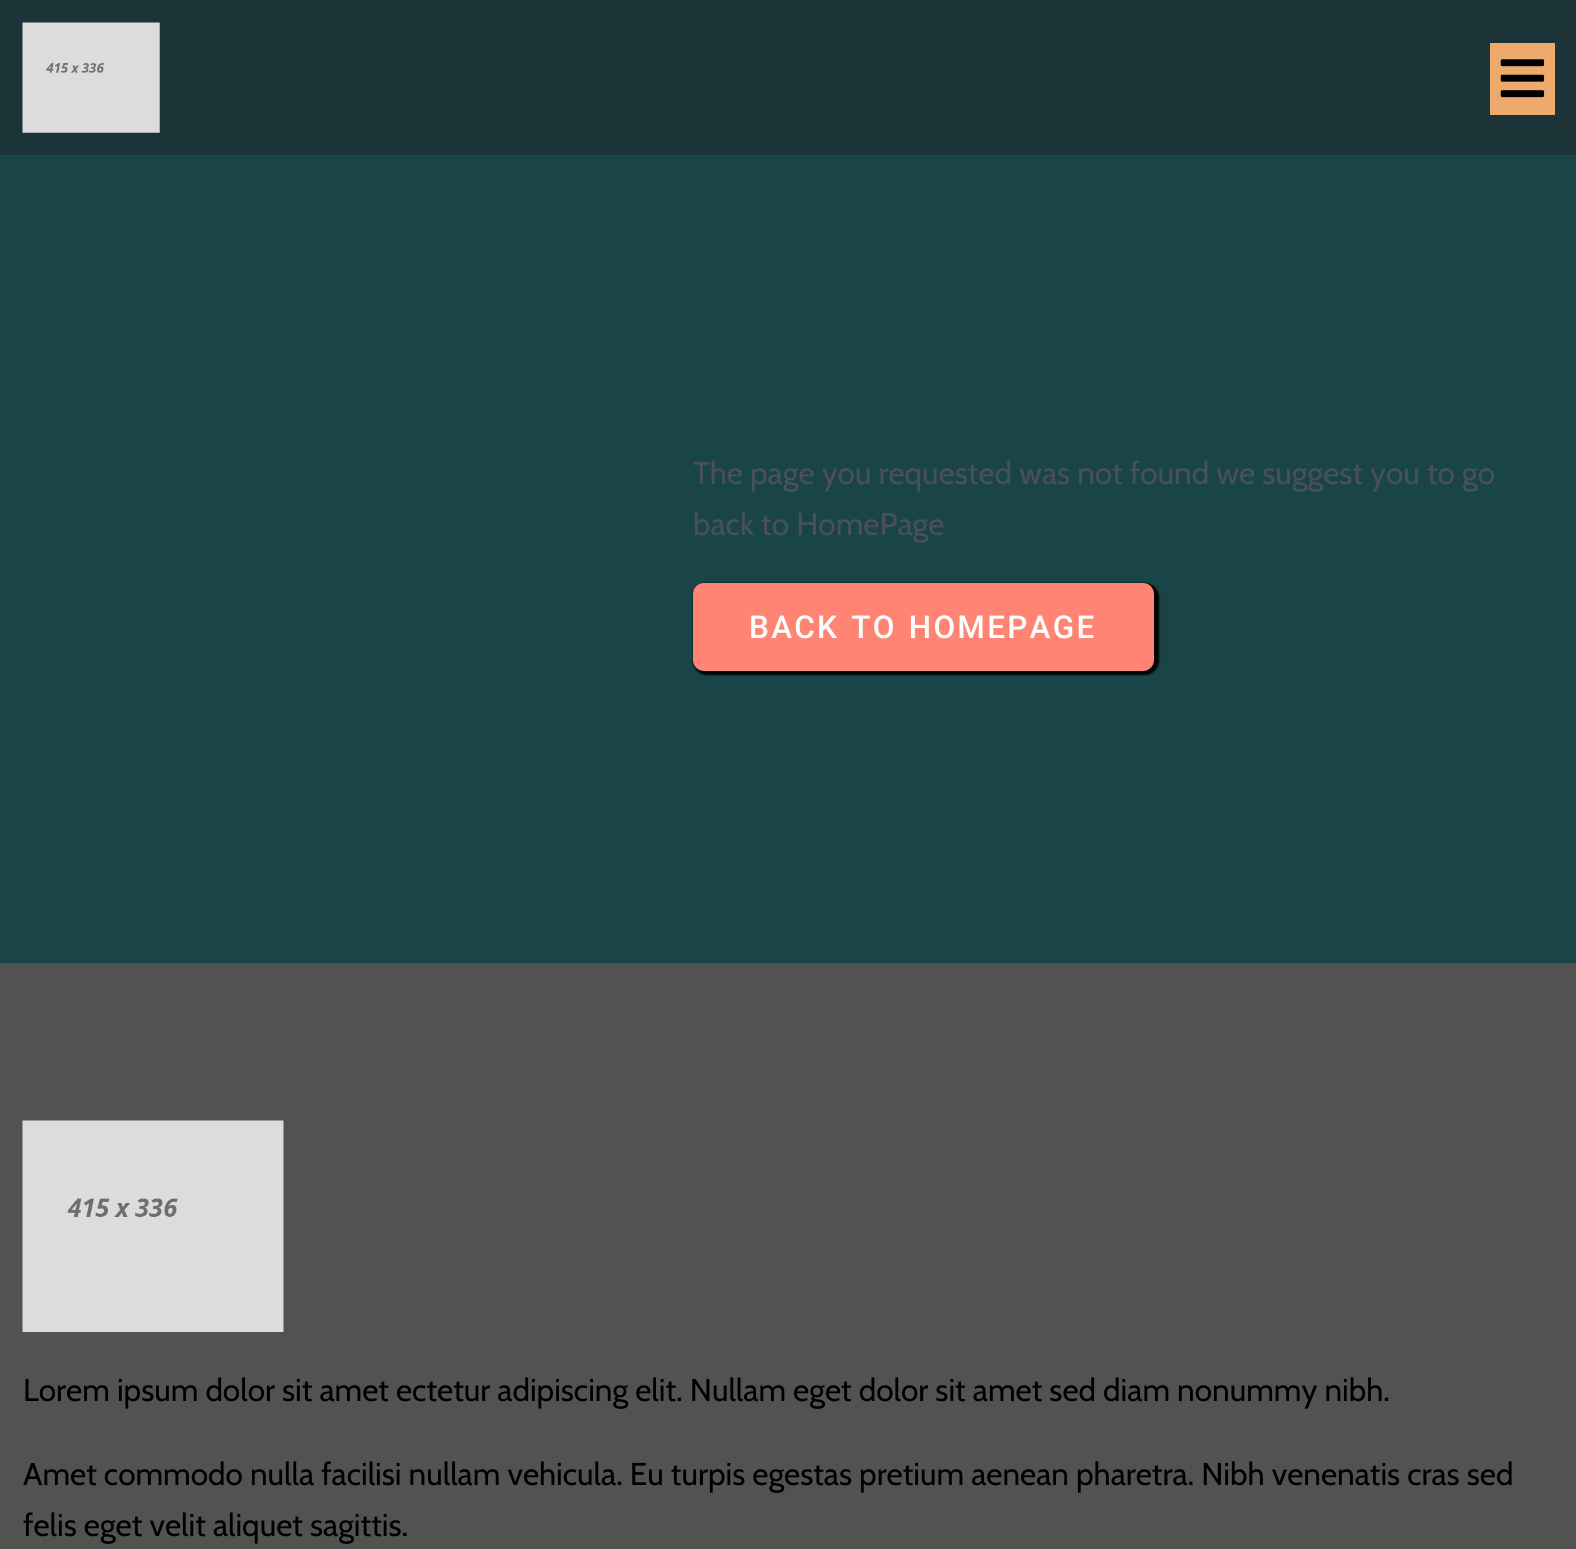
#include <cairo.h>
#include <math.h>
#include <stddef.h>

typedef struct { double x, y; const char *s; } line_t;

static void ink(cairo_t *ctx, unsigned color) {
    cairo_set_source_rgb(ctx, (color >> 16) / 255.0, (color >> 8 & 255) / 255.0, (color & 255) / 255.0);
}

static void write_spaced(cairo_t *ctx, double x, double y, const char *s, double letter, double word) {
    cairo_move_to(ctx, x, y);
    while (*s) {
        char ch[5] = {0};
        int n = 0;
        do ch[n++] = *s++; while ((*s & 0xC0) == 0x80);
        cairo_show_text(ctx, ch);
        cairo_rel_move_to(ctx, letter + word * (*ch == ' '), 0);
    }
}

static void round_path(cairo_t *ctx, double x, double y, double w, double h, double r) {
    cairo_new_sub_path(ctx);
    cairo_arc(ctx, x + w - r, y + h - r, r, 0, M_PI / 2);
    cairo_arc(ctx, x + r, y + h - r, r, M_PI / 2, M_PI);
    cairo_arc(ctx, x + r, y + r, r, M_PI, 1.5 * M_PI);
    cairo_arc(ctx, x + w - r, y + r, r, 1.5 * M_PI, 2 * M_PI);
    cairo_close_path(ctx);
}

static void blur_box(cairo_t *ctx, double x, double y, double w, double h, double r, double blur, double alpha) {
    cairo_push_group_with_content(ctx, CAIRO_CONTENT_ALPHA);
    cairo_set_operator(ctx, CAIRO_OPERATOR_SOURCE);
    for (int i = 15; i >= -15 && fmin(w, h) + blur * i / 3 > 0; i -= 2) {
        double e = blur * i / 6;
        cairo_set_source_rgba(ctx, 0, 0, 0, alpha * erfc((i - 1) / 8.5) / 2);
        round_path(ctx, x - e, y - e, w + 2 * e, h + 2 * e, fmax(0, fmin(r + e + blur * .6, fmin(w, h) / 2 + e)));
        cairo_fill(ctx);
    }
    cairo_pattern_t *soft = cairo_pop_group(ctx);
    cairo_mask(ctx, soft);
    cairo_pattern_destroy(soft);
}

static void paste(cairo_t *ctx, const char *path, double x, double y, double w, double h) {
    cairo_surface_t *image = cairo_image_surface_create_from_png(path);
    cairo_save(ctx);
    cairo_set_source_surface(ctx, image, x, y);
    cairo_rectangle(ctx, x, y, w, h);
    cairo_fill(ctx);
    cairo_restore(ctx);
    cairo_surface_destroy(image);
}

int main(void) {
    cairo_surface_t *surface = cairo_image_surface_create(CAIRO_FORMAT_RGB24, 1576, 1549);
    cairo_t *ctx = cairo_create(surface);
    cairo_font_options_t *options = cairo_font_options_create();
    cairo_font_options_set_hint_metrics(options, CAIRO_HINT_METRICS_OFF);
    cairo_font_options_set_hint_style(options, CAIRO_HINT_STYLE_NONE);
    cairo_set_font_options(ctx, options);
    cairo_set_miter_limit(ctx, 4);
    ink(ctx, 0x1A4548);
    cairo_paint(ctx);
    ink(ctx, 0x1C3437);
    cairo_rectangle(ctx, 0, 0, 1576, 155);
    cairo_fill(ctx);
    paste(ctx, "media/1.png", 22, 22, 138, 111);
    ink(ctx, 0xEEAA6D);
    cairo_rectangle(ctx, 1490, 43, 65, 72);
    cairo_fill(ctx);
    paste(ctx, "media/2.png", 1500, 59, 45, 39);
    cairo_select_font_face(ctx, "Cabin", CAIRO_FONT_SLANT_NORMAL, CAIRO_FONT_WEIGHT_NORMAL);
    cairo_set_font_size(ctx, 31.5);
    ink(ctx, 0x495057);
    cairo_move_to(ctx, 693, 484);
    cairo_show_text(ctx, "The page you requested was not found we suggest you to go");
    cairo_move_to(ctx, 693, 535);
    cairo_show_text(ctx, "back to HomePage");
    ink(ctx, 0x000000);
    blur_box(ctx, 693, 583, 466, 92, 14, 1, 1);
    ink(ctx, 0xFF8474);
    round_path(ctx, 693, 583, 461, 88, 11);
    cairo_fill(ctx);
    cairo_select_font_face(ctx, "Roboto Medium", CAIRO_FONT_SLANT_NORMAL, CAIRO_FONT_WEIGHT_NORMAL);
    ink(ctx, 0xFFFFFF);
    write_spaced(ctx, 749, 638, "BACK TO HOMEPAGE", 2.25, 2);
    ink(ctx, 0x525251);
    cairo_rectangle(ctx, 0, 963, 1576, 586);
    cairo_fill(ctx);
    paste(ctx, "media/3.png", 22, 1120, 262, 212);
    cairo_select_font_face(ctx, "Cabin", CAIRO_FONT_SLANT_NORMAL, CAIRO_FONT_WEIGHT_NORMAL);
    ink(ctx, 0x000000);
    {
        static const line_t items[] = {
            {23, 1401, "Lorem ipsum dolor sit amet ectetur adipiscing elit. Nullam eget dolor sit amet sed diam nonummy nibh."},
            {23, 1485, "Amet commodo nulla facilisi nullam vehicula. Eu turpis egestas pretium aenean pharetra. Nibh venenatis cras sed"},
            {23, 1536, "felis eget velit aliquet sagittis."},
        };
        for (size_t i = 0; i < sizeof items / sizeof *items; i++) {
            cairo_move_to(ctx, items[i].x, items[i].y);
            cairo_show_text(ctx, items[i].s);
        }
    }
    cairo_surface_write_to_png(surface, "image.png");
    cairo_font_options_destroy(options);
    cairo_destroy(ctx);
    cairo_surface_destroy(surface);
    return 0;
}
